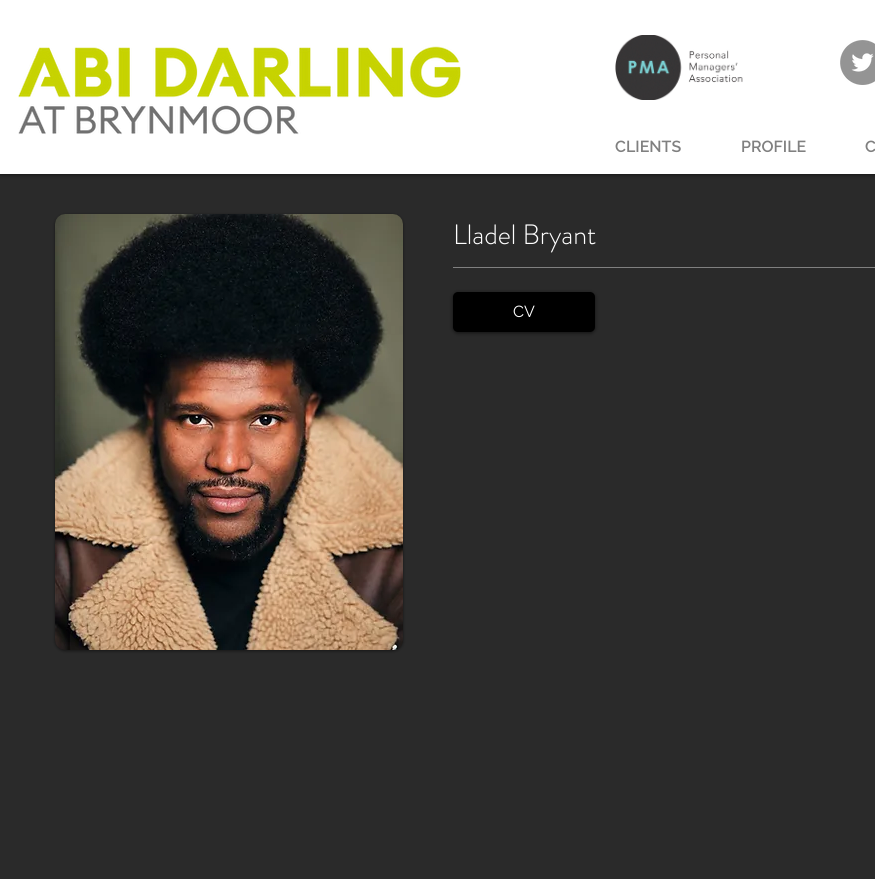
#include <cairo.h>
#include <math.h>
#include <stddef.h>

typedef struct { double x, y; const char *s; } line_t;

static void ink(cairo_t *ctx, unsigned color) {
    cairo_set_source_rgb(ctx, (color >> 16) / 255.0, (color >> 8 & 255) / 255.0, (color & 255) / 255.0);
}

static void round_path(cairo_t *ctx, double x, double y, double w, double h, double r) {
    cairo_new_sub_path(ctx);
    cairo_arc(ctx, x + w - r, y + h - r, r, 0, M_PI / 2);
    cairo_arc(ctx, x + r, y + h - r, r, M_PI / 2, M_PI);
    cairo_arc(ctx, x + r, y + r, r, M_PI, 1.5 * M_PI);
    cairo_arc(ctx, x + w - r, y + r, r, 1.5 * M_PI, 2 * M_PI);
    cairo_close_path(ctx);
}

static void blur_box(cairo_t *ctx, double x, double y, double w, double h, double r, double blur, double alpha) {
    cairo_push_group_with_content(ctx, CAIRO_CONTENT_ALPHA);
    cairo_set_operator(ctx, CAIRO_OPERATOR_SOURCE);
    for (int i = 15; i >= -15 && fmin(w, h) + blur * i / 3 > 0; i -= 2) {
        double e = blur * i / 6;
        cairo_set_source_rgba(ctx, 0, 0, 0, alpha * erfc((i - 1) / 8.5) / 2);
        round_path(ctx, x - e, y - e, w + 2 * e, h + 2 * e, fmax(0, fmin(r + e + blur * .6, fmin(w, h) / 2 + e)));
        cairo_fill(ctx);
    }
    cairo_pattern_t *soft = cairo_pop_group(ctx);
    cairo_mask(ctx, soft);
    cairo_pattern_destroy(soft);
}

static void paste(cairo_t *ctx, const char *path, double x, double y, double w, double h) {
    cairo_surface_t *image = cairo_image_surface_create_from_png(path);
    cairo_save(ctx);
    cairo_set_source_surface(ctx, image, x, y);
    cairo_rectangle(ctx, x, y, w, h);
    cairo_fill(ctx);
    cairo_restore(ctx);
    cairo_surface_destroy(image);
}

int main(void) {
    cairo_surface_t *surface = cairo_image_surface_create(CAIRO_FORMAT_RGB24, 875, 879);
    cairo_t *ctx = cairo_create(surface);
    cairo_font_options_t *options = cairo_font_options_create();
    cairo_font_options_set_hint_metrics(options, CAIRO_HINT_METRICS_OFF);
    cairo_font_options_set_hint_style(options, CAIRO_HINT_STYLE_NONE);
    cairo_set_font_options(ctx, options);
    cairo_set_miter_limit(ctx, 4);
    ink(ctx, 0x2A2A2A);
    cairo_paint(ctx);
    ink(ctx, 0x000000);
    blur_box(ctx, 0, 0, 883, 174, 0, 2.5, 0.7);
    ink(ctx, 0xFFFFFF);
    cairo_rectangle(ctx, 0, 0, 875, 174);
    cairo_fill(ctx);
    paste(ctx, "media/1.png", 18, 46, 443, 89);
    paste(ctx, "media/2.png", 615, 35, 128, 65);
    paste(ctx, "media/3.png", 840, 40, 35, 45);
    cairo_select_font_face(ctx, "Raleway SemiBold", CAIRO_FONT_SLANT_NORMAL, CAIRO_FONT_WEIGHT_NORMAL);
    cairo_set_font_size(ctx, 16);
    ink(ctx, 0x808080);
    {
        static const line_t items[] = {
            {615, 152, "CLIENTS"},
            {741, 152, "PROFILE"},
            {865, 152, "C"},
        };
        for (size_t i = 0; i < sizeof items / sizeof *items; i++) {
            cairo_move_to(ctx, items[i].x, items[i].y);
            cairo_show_text(ctx, items[i].s);
        }
    }
    ink(ctx, 0x000000);
    blur_box(ctx, 55, 215, 348, 436, 10, 1.5, 0.5);
    paste(ctx, "media/4.png", 55, 214, 348, 436);
    cairo_select_font_face(ctx, "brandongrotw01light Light", CAIRO_FONT_SLANT_NORMAL, CAIRO_FONT_WEIGHT_NORMAL);
    cairo_set_font_size(ctx, 28);
    ink(ctx, 0xFFFFFF);
    cairo_move_to(ctx, 453, 244);
    cairo_show_text(ctx, "Lladel Bryant");
    ink(ctx, 0x808080);
    cairo_rectangle(ctx, 453, 267, 422, 1);
    cairo_fill(ctx);
    ink(ctx, 0x000000);
    blur_box(ctx, 453, 293, 142, 40, 5, 2, 0.6);
    ink(ctx, 0x000000);
    round_path(ctx, 453, 292, 142, 40, 5);
    cairo_fill(ctx);
    cairo_select_font_face(ctx, "Raleway", CAIRO_FONT_SLANT_NORMAL, CAIRO_FONT_WEIGHT_NORMAL);
    cairo_set_font_size(ctx, 16);
    ink(ctx, 0xFFFFFF);
    cairo_move_to(ctx, 513, 317);
    cairo_show_text(ctx, "CV");
    cairo_surface_write_to_png(surface, "image.png");
    cairo_font_options_destroy(options);
    cairo_destroy(ctx);
    cairo_surface_destroy(surface);
    return 0;
}
